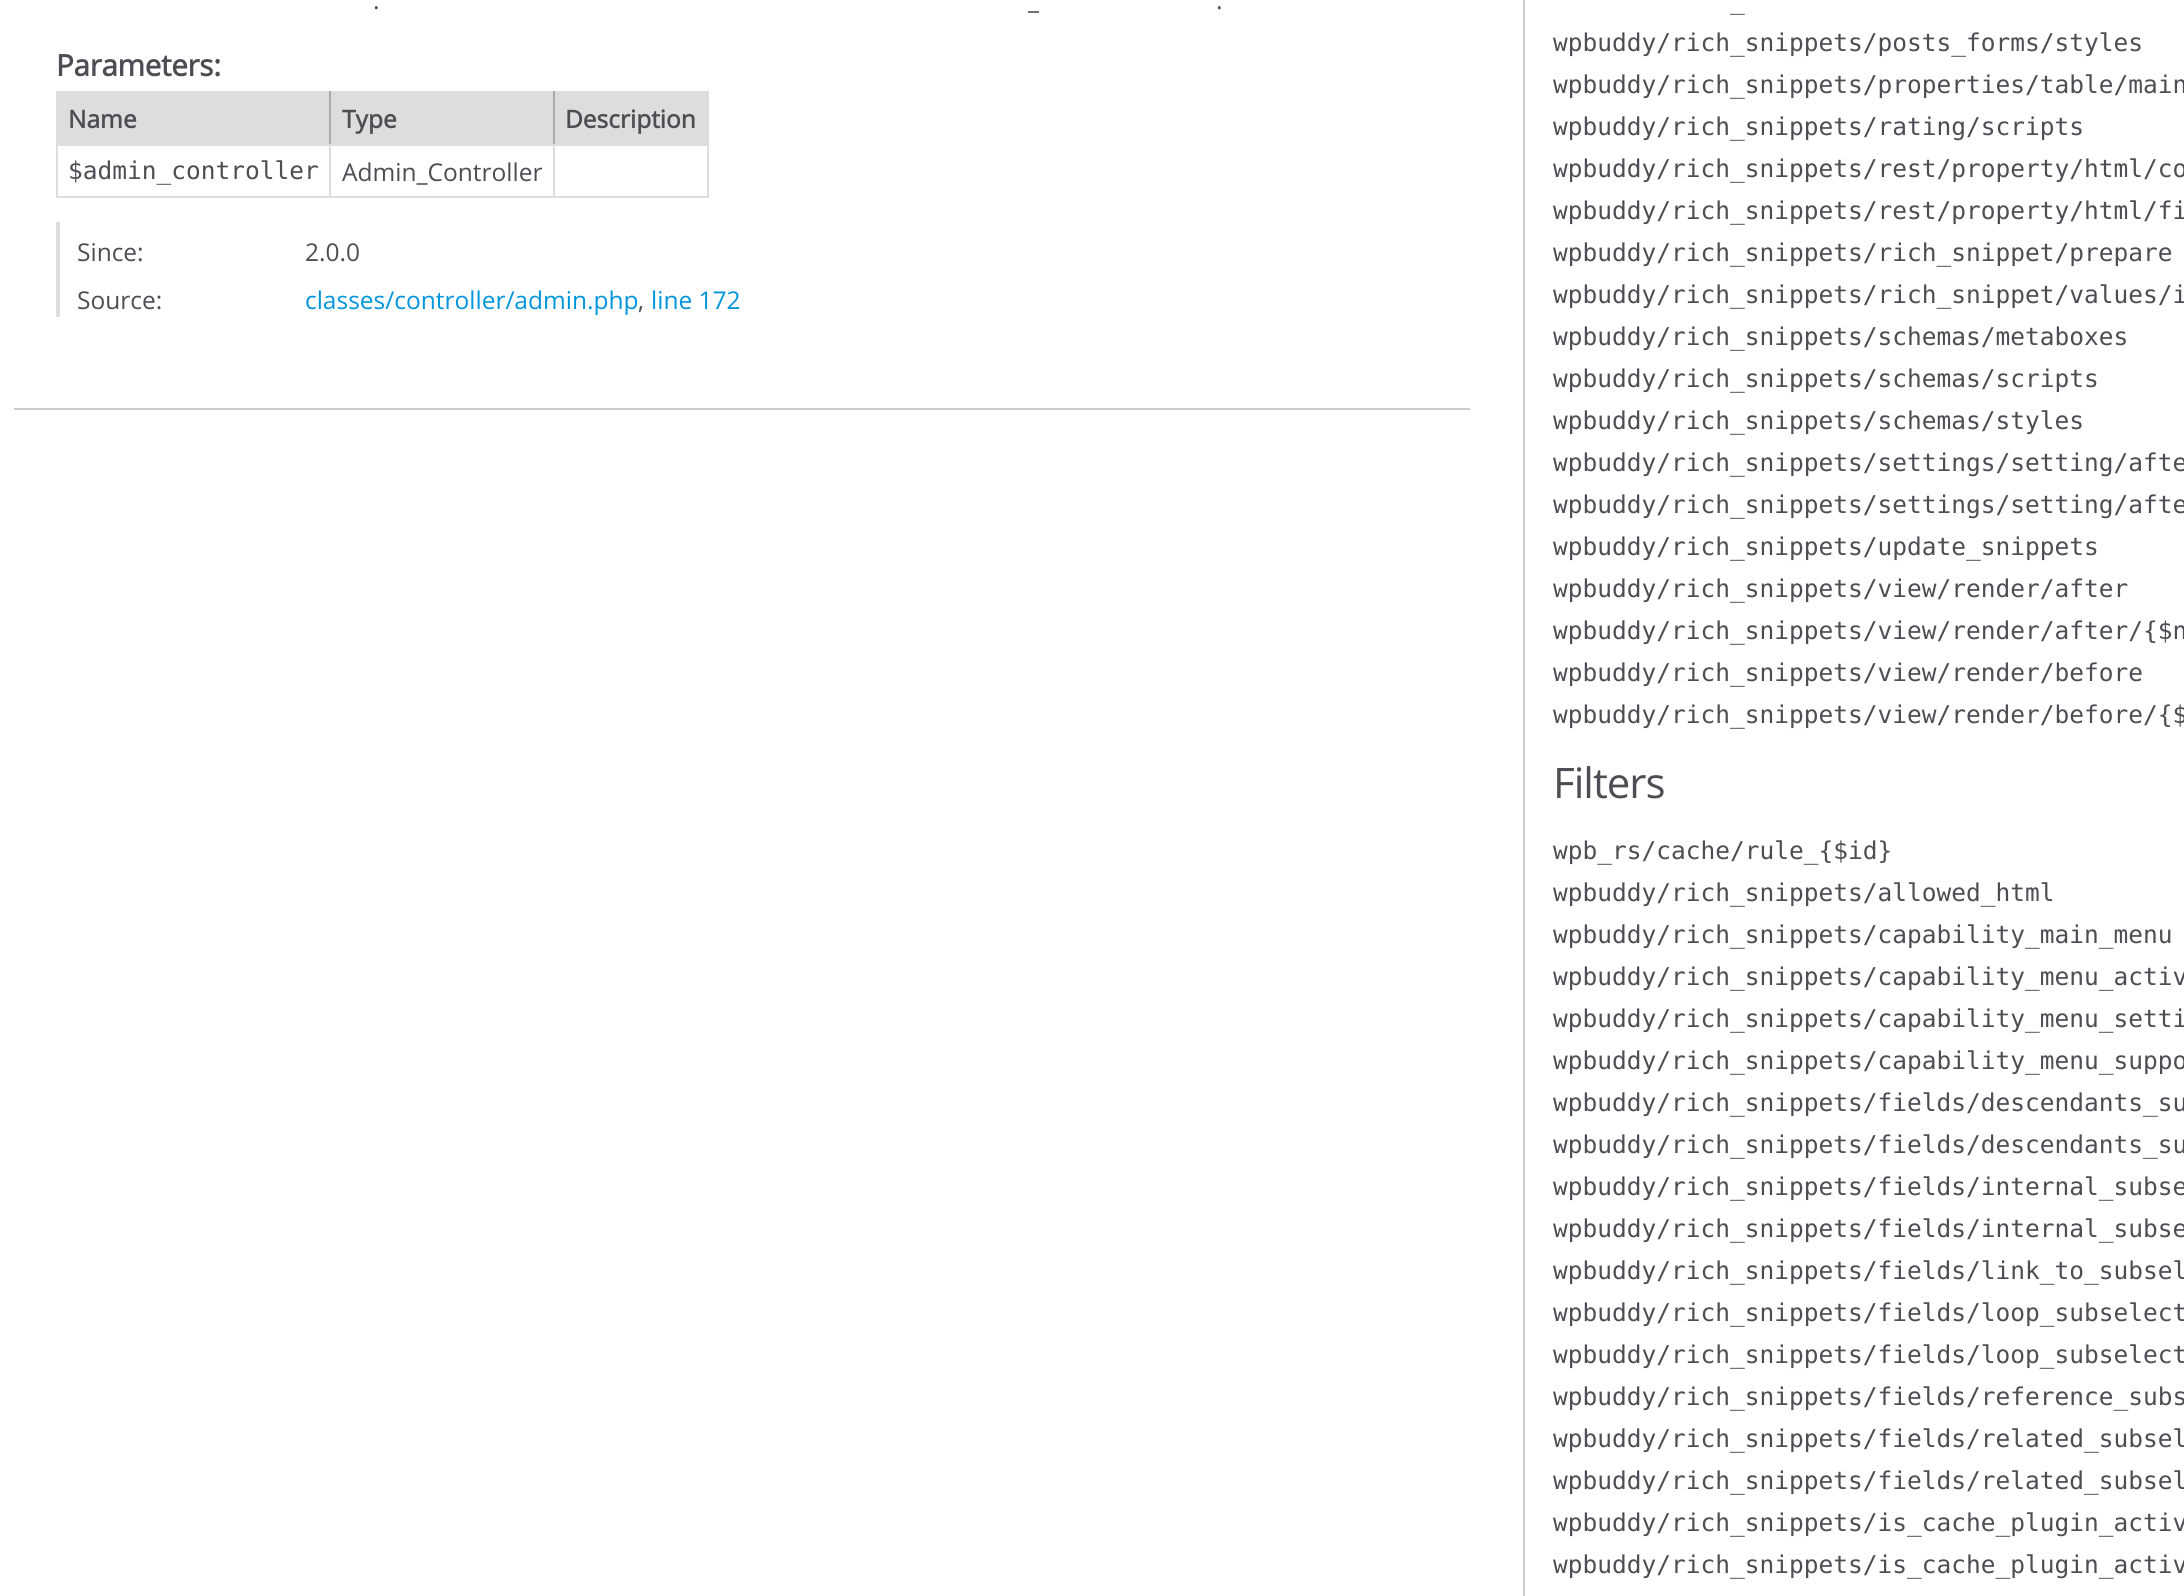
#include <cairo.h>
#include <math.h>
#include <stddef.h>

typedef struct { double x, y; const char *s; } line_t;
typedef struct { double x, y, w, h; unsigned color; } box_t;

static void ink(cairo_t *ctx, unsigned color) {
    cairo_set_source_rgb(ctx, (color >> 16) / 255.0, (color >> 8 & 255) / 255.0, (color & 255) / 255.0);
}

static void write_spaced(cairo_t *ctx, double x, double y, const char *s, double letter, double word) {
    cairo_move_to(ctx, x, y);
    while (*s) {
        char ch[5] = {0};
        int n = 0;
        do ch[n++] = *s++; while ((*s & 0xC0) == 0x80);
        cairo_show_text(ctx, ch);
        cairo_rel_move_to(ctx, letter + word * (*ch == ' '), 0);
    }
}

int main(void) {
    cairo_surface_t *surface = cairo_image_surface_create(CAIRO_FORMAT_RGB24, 2184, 1596);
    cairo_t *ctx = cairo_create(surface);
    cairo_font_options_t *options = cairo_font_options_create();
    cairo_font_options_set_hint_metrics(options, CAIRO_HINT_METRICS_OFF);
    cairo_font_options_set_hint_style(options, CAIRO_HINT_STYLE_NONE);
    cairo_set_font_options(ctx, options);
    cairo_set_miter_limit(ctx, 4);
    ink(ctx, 0xFFFFFF);
    cairo_paint(ctx);
    ink(ctx, 0xCCCCCC);
    cairo_rectangle(ctx, 14, 408, 1456, 2);
    cairo_fill(ctx);
    cairo_select_font_face(ctx, "Open Sans", CAIRO_FONT_SLANT_NORMAL, CAIRO_FONT_WEIGHT_NORMAL);
    cairo_set_font_size(ctx, 24.5);
    ink(ctx, 0x4D4E53);
    {
        static const line_t items[] = {
            {373, 9, "."},
            {1216, 9, "."},
            {1028, 9, "_"},
        };
        for (size_t i = 0; i < sizeof items / sizeof *items; i++) {
            cairo_move_to(ctx, items[i].x, items[i].y);
            cairo_show_text(ctx, items[i].s);
        }
    }
    cairo_select_font_face(ctx, "Open Sans", CAIRO_FONT_SLANT_NORMAL, CAIRO_FONT_WEIGHT_BOLD);
    cairo_set_font_size(ctx, 29.5);
    write_spaced(ctx, 56, 76, "Parameters:", -0.25, 0);
    {
        static const box_t items[] = {
            {58, 93, 649, 51, 0xDDDDDD},
            {56, 91, 653, 2, 0xDDDDDD},
            {553, 144, 156, 2, 0xDDDDDD},
            {707, 144, 2, 54, 0xDDDDDD},
            {553, 196, 156, 2, 0xDDDDDD},
            {553, 144, 2, 54, 0xDDDDDD},
            {553, 91, 2, 54, 0xAAAAAA},
            {329, 196, 226, 2, 0xDDDDDD},
            {329, 144, 2, 54, 0xDDDDDD},
            {329, 144, 226, 2, 0xDDDDDD},
            {329, 91, 2, 54, 0xAAAAAA},
            {56, 196, 275, 2, 0xDDDDDD},
            {56, 144, 2, 54, 0xDDDDDD},
            {56, 144, 275, 2, 0xDDDDDD},
            {56, 91, 2, 54, 0xDDDDDD},
        };
        for (size_t i = 0; i < sizeof items / sizeof *items; i++) {
            ink(ctx, items[i].color);
            cairo_rectangle(ctx, items[i].x, items[i].y, items[i].w, items[i].h);
            cairo_fill(ctx);
        }
    }
    cairo_set_font_size(ctx, 24.5);
    ink(ctx, 0x4D4E53);
    cairo_move_to(ctx, 68, 128);
    cairo_show_text(ctx, "Name");
    cairo_move_to(ctx, 342, 128);
    cairo_show_text(ctx, "Type");
    ink(ctx, 0xDDDDDD);
    cairo_rectangle(ctx, 707, 91, 2, 54);
    cairo_fill(ctx);
    ink(ctx, 0x4D4E53);
    cairo_move_to(ctx, 565, 128);
    cairo_show_text(ctx, "Description");
    cairo_select_font_face(ctx, "DejaVu Sans Mono", CAIRO_FONT_SLANT_NORMAL, CAIRO_FONT_WEIGHT_NORMAL);
    cairo_move_to(ctx, 68, 179);
    cairo_show_text(ctx, "$admin_controller");
    cairo_select_font_face(ctx, "Open Sans", CAIRO_FONT_SLANT_NORMAL, CAIRO_FONT_WEIGHT_NORMAL);
    cairo_move_to(ctx, 342, 181);
    cairo_show_text(ctx, "Admin_Controller");
    ink(ctx, 0xDDDDDD);
    cairo_rectangle(ctx, 56, 222, 4, 95);
    cairo_fill(ctx);
    ink(ctx, 0x4D4E53);
    {
        static const line_t items[] = {
            {77, 261, "Since:"},
            {305, 261, "2.0.0"},
            {77, 309, "Source:"},
        };
        for (size_t i = 0; i < sizeof items / sizeof *items; i++) {
            cairo_move_to(ctx, items[i].x, items[i].y);
            cairo_show_text(ctx, items[i].s);
        }
    }
    ink(ctx, 0x0095DD);
    cairo_move_to(ctx, 305, 309);
    cairo_show_text(ctx, "classes/controller/admin.php");
    ink(ctx, 0x4D4E53);
    cairo_move_to(ctx, 638, 309);
    cairo_show_text(ctx, ",");
    ink(ctx, 0x0095DD);
    cairo_move_to(ctx, 651, 309);
    cairo_show_text(ctx, "line 172");
    ink(ctx, 0xCCCCCC);
    cairo_rectangle(ctx, 1523, 0, 2, 1596);
    cairo_fill(ctx);
    cairo_select_font_face(ctx, "DejaVu Sans Mono", CAIRO_FONT_SLANT_NORMAL, CAIRO_FONT_WEIGHT_NORMAL);
    ink(ctx, 0x4D4E53);
    {
        static const line_t items[] = {
            {1730, 9, "_"},
            {1553, 51, "wpbuddy/rich_snippets/posts_forms/styles"},
            {1553, 93, "wpbuddy/rich_snippets/properties/table/main"},
            {1553, 135, "wpbuddy/rich_snippets/rating/scripts"},
            {1553, 177, "wpbuddy/rich_snippets/rest/property/html/co"},
            {1553, 219, "wpbuddy/rich_snippets/rest/property/html/fi"},
            {1553, 261, "wpbuddy/rich_snippets/rich_snippet/prepare"},
            {1553, 303, "wpbuddy/rich_snippets/rich_snippet/values/i"},
            {1553, 345, "wpbuddy/rich_snippets/schemas/metaboxes"},
            {1553, 387, "wpbuddy/rich_snippets/schemas/scripts"},
            {1553, 429, "wpbuddy/rich_snippets/schemas/styles"},
            {1553, 471, "wpbuddy/rich_snippets/settings/setting/afte"},
            {1553, 513, "wpbuddy/rich_snippets/settings/setting/afte"},
            {1553, 555, "wpbuddy/rich_snippets/update_snippets"},
            {1553, 597, "wpbuddy/rich_snippets/view/render/after"},
            {1553, 639, "wpbuddy/rich_snippets/view/render/after/{$n"},
            {1553, 681, "wpbuddy/rich_snippets/view/render/before"},
            {1553, 723, "wpbuddy/rich_snippets/view/render/before/{$"},
        };
        for (size_t i = 0; i < sizeof items / sizeof *items; i++) {
            cairo_move_to(ctx, items[i].x, items[i].y);
            cairo_show_text(ctx, items[i].s);
        }
    }
    cairo_select_font_face(ctx, "Open Sans", CAIRO_FONT_SLANT_NORMAL, CAIRO_FONT_WEIGHT_NORMAL);
    cairo_set_font_size(ctx, 42);
    write_spaced(ctx, 1553, 798, "Filters", -1, 0);
    cairo_select_font_face(ctx, "DejaVu Sans Mono", CAIRO_FONT_SLANT_NORMAL, CAIRO_FONT_WEIGHT_NORMAL);
    cairo_set_font_size(ctx, 24.5);
    {
        static const line_t items[] = {
            {1553, 859, "wpb_rs/cache/rule_{$id}"},
            {1553, 901, "wpbuddy/rich_snippets/allowed_html"},
            {1553, 943, "wpbuddy/rich_snippets/capability_main_menu"},
            {1553, 985, "wpbuddy/rich_snippets/capability_menu_activ"},
            {1553, 1027, "wpbuddy/rich_snippets/capability_menu_setti"},
            {1553, 1069, "wpbuddy/rich_snippets/capability_menu_suppo"},
            {1553, 1111, "wpbuddy/rich_snippets/fields/descendants_su"},
            {1553, 1153, "wpbuddy/rich_snippets/fields/descendants_su"},
            {1553, 1195, "wpbuddy/rich_snippets/fields/internal_subse"},
            {1553, 1237, "wpbuddy/rich_snippets/fields/internal_subse"},
            {1553, 1279, "wpbuddy/rich_snippets/fields/link_to_subsel"},
            {1553, 1321, "wpbuddy/rich_snippets/fields/loop_subselect"},
            {1553, 1363, "wpbuddy/rich_snippets/fields/loop_subselect"},
            {1553, 1405, "wpbuddy/rich_snippets/fields/reference_subs"},
            {1553, 1447, "wpbuddy/rich_snippets/fields/related_subsel"},
            {1553, 1489, "wpbuddy/rich_snippets/fields/related_subsel"},
            {1553, 1531, "wpbuddy/rich_snippets/is_cache_plugin_activ"},
            {1553, 1573, "wpbuddy/rich_snippets/is_cache_plugin_activ"},
        };
        for (size_t i = 0; i < sizeof items / sizeof *items; i++) {
            cairo_move_to(ctx, items[i].x, items[i].y);
            cairo_show_text(ctx, items[i].s);
        }
    }
    cairo_surface_write_to_png(surface, "image.png");
    cairo_font_options_destroy(options);
    cairo_destroy(ctx);
    cairo_surface_destroy(surface);
    return 0;
}
